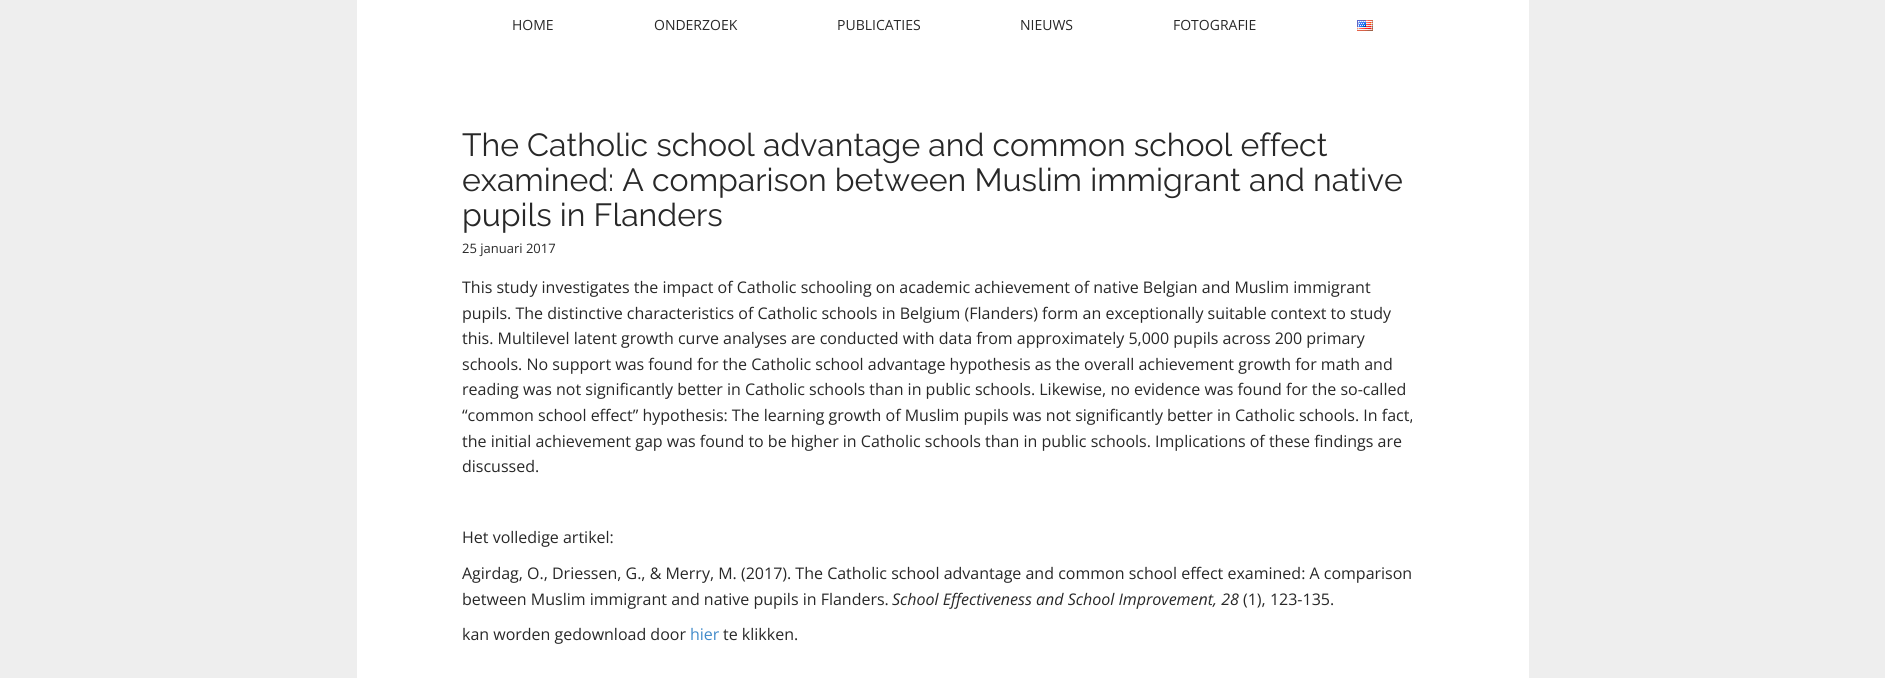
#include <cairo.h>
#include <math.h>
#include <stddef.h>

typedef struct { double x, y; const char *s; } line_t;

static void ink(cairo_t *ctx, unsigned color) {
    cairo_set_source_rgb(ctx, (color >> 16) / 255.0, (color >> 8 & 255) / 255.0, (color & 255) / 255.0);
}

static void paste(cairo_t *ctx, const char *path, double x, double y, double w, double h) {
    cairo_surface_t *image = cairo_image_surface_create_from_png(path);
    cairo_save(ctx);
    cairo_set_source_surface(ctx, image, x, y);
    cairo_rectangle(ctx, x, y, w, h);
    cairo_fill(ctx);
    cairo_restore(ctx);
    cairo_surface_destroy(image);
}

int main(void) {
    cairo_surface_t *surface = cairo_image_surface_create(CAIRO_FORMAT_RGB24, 1885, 678);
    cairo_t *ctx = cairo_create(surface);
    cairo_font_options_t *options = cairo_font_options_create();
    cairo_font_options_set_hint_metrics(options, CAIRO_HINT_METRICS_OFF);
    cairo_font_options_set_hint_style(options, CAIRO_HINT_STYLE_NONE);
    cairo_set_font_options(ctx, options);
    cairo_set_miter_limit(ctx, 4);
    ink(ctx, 0xEEEEEE);
    cairo_paint(ctx);
    ink(ctx, 0xFFFFFF);
    cairo_rectangle(ctx, 357, 0, 1172, 678);
    cairo_fill(ctx);
    cairo_select_font_face(ctx, "Open Sans", CAIRO_FONT_SLANT_NORMAL, CAIRO_FONT_WEIGHT_NORMAL);
    cairo_set_font_size(ctx, 14);
    ink(ctx, 0x282828);
    {
        static const line_t items[] = {
            {512, 30, "HOME"},
            {654, 30, "ONDERZOEK"},
            {837, 30, "PUBLICATIES"},
            {1020, 30, "NIEUWS"},
            {1173, 30, "FOTOGRAFIE"},
        };
        for (size_t i = 0; i < sizeof items / sizeof *items; i++) {
            cairo_move_to(ctx, items[i].x, items[i].y);
            cairo_show_text(ctx, items[i].s);
        }
    }
    paste(ctx, "media/1.png", 1357, 20, 16, 11);
    cairo_select_font_face(ctx, "Raleway Thin", CAIRO_FONT_SLANT_NORMAL, CAIRO_FONT_WEIGHT_NORMAL);
    cairo_set_font_size(ctx, 32);
    {
        static const line_t items[] = {
            {462, 156, "The Catholic school advantage and common school effect"},
            {462, 191, "examined: A comparison between Muslim immigrant and native"},
            {462, 226, "pupils in Flanders"},
        };
        for (size_t i = 0; i < sizeof items / sizeof *items; i++) {
            cairo_move_to(ctx, items[i].x, items[i].y);
            cairo_show_text(ctx, items[i].s);
        }
    }
    cairo_select_font_face(ctx, "Open Sans", CAIRO_FONT_SLANT_NORMAL, CAIRO_FONT_WEIGHT_NORMAL);
    cairo_set_font_size(ctx, 13);
    cairo_move_to(ctx, 462, 253);
    cairo_show_text(ctx, "25 januari 2017");
    cairo_set_font_size(ctx, 16);
    {
        static const line_t items[] = {
            {462, 293, "This study investigates the impact of Catholic schooling on academic achievement of native Belgian and Muslim immigrant"},
            {462, 319, "pupils. The distinctive characteristics of Catholic schools in Belgium (Flanders) form an exceptionally suitable context to study"},
            {462, 344, "this. Multilevel latent growth curve analyses are conducted with data from approximately 5,000 pupils across 200 primary"},
            {462, 370, "schools. No support was found for the Catholic school advantage hypothesis as the overall achievement growth for math and"},
            {462, 395, "reading was not significantly better in Catholic schools than in public schools. Likewise, no evidence was found for the so-called"},
            {462, 421, "“common school effect” hypothesis: The learning growth of Muslim pupils was not significantly better in Catholic schools. In fact,"},
            {462, 447, "the initial achievement gap was found to be higher in Catholic schools than in public schools. Implications of these findings are"},
            {462, 472, "discussed."},
            {462, 543, "Het volledige artikel:"},
            {462, 579, "Agirdag, O., Driessen, G., & Merry, M. (2017). The Catholic school advantage and common school effect examined: A comparison"},
            {462, 605, "between Muslim immigrant and native pupils in Flanders."},
        };
        for (size_t i = 0; i < sizeof items / sizeof *items; i++) {
            cairo_move_to(ctx, items[i].x, items[i].y);
            cairo_show_text(ctx, items[i].s);
        }
    }
    cairo_select_font_face(ctx, "Open Sans", CAIRO_FONT_SLANT_ITALIC, CAIRO_FONT_WEIGHT_NORMAL);
    cairo_move_to(ctx, 892, 605);
    cairo_show_text(ctx, "School Effectiveness and School Improvement, 28");
    cairo_select_font_face(ctx, "Open Sans", CAIRO_FONT_SLANT_NORMAL, CAIRO_FONT_WEIGHT_NORMAL);
    cairo_move_to(ctx, 1243, 605);
    cairo_show_text(ctx, "(1), 123-135.");
    cairo_move_to(ctx, 462, 640);
    cairo_show_text(ctx, "kan worden gedownload door");
    ink(ctx, 0x428BCA);
    cairo_move_to(ctx, 690, 640);
    cairo_show_text(ctx, "hier");
    ink(ctx, 0x282828);
    cairo_move_to(ctx, 723, 640);
    cairo_show_text(ctx, "te klikken.");
    cairo_surface_write_to_png(surface, "image.png");
    cairo_font_options_destroy(options);
    cairo_destroy(ctx);
    cairo_surface_destroy(surface);
    return 0;
}
